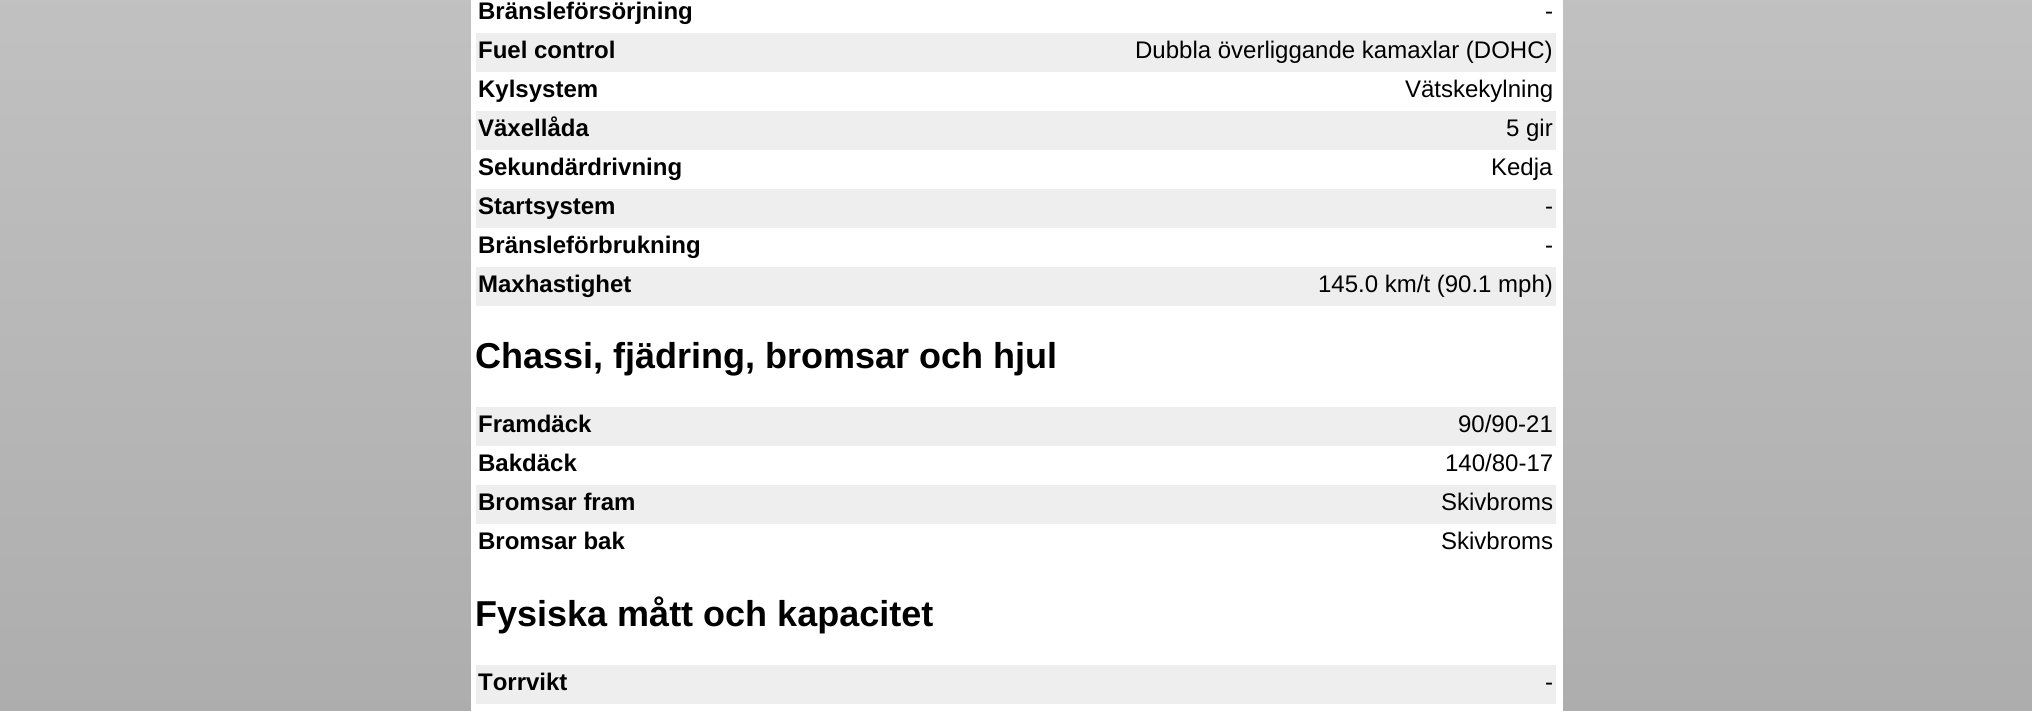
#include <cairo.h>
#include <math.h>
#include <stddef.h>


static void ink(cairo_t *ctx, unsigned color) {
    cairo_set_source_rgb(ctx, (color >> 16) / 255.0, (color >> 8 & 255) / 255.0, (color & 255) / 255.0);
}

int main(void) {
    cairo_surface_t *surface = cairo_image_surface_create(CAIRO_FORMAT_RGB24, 2032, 711);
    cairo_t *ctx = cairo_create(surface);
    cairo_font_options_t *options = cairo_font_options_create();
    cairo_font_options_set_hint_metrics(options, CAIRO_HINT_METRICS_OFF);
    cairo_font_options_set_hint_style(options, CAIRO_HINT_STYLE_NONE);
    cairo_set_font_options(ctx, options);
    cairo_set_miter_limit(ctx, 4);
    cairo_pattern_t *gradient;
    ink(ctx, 0xFFFFFF);
    cairo_paint(ctx);
    gradient = cairo_pattern_create_linear(1016, -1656, 1016, 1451);
    cairo_pattern_add_color_stop_rgba(gradient, 0, 0.933, 0.933, 0.933, 1);
    cairo_pattern_add_color_stop_rgba(gradient, 1, 0.6, 0.6, 0.6, 1);
    cairo_set_source(ctx, gradient);
    cairo_pattern_destroy(gradient);
    cairo_rectangle(ctx, 0, 0, 2032, 711);
    cairo_fill(ctx);
    ink(ctx, 0xFFFFFF);
    cairo_rectangle(ctx, 471, 0, 1092, 711);
    cairo_fill(ctx);
    cairo_select_font_face(ctx, "Liberation Sans", CAIRO_FONT_SLANT_NORMAL, CAIRO_FONT_WEIGHT_BOLD);
    cairo_set_font_size(ctx, 24);
    ink(ctx, 0x000000);
    cairo_move_to(ctx, 478, 19);
    cairo_show_text(ctx, "Bränsleförsörjning");
    cairo_select_font_face(ctx, "Liberation Sans", CAIRO_FONT_SLANT_NORMAL, CAIRO_FONT_WEIGHT_NORMAL);
    cairo_move_to(ctx, 1545, 19);
    cairo_show_text(ctx, "-");
    ink(ctx, 0xEEEEEE);
    cairo_rectangle(ctx, 476, 33, 1080, 39);
    cairo_fill(ctx);
    cairo_select_font_face(ctx, "Liberation Sans", CAIRO_FONT_SLANT_NORMAL, CAIRO_FONT_WEIGHT_BOLD);
    ink(ctx, 0x000000);
    cairo_move_to(ctx, 478, 58);
    cairo_show_text(ctx, "Fuel control");
    cairo_select_font_face(ctx, "Liberation Sans", CAIRO_FONT_SLANT_NORMAL, CAIRO_FONT_WEIGHT_NORMAL);
    cairo_move_to(ctx, 1135, 58);
    cairo_show_text(ctx, "Dubbla överliggande kamaxlar (DOHC)");
    cairo_select_font_face(ctx, "Liberation Sans", CAIRO_FONT_SLANT_NORMAL, CAIRO_FONT_WEIGHT_BOLD);
    cairo_move_to(ctx, 478, 97);
    cairo_show_text(ctx, "Kylsystem");
    cairo_select_font_face(ctx, "Liberation Sans", CAIRO_FONT_SLANT_NORMAL, CAIRO_FONT_WEIGHT_NORMAL);
    cairo_move_to(ctx, 1405, 97);
    cairo_show_text(ctx, "Vätskekylning");
    ink(ctx, 0xEEEEEE);
    cairo_rectangle(ctx, 476, 111, 1080, 39);
    cairo_fill(ctx);
    cairo_select_font_face(ctx, "Liberation Sans", CAIRO_FONT_SLANT_NORMAL, CAIRO_FONT_WEIGHT_BOLD);
    ink(ctx, 0x000000);
    cairo_move_to(ctx, 478, 136);
    cairo_show_text(ctx, "Växellåda");
    cairo_select_font_face(ctx, "Liberation Sans", CAIRO_FONT_SLANT_NORMAL, CAIRO_FONT_WEIGHT_NORMAL);
    cairo_move_to(ctx, 1506, 136);
    cairo_show_text(ctx, "5 gir");
    cairo_select_font_face(ctx, "Liberation Sans", CAIRO_FONT_SLANT_NORMAL, CAIRO_FONT_WEIGHT_BOLD);
    cairo_move_to(ctx, 478, 175);
    cairo_show_text(ctx, "Sekundärdrivning");
    cairo_select_font_face(ctx, "Liberation Sans", CAIRO_FONT_SLANT_NORMAL, CAIRO_FONT_WEIGHT_NORMAL);
    cairo_move_to(ctx, 1491, 175);
    cairo_show_text(ctx, "Kedja");
    ink(ctx, 0xEEEEEE);
    cairo_rectangle(ctx, 476, 189, 1080, 39);
    cairo_fill(ctx);
    cairo_select_font_face(ctx, "Liberation Sans", CAIRO_FONT_SLANT_NORMAL, CAIRO_FONT_WEIGHT_BOLD);
    ink(ctx, 0x000000);
    cairo_move_to(ctx, 478, 214);
    cairo_show_text(ctx, "Startsystem");
    cairo_select_font_face(ctx, "Liberation Sans", CAIRO_FONT_SLANT_NORMAL, CAIRO_FONT_WEIGHT_NORMAL);
    cairo_move_to(ctx, 1545, 214);
    cairo_show_text(ctx, "-");
    cairo_select_font_face(ctx, "Liberation Sans", CAIRO_FONT_SLANT_NORMAL, CAIRO_FONT_WEIGHT_BOLD);
    cairo_move_to(ctx, 478, 253);
    cairo_show_text(ctx, "Bränsleförbrukning");
    cairo_select_font_face(ctx, "Liberation Sans", CAIRO_FONT_SLANT_NORMAL, CAIRO_FONT_WEIGHT_NORMAL);
    cairo_move_to(ctx, 1545, 253);
    cairo_show_text(ctx, "-");
    ink(ctx, 0xEEEEEE);
    cairo_rectangle(ctx, 476, 267, 1080, 39);
    cairo_fill(ctx);
    cairo_select_font_face(ctx, "Liberation Sans", CAIRO_FONT_SLANT_NORMAL, CAIRO_FONT_WEIGHT_BOLD);
    ink(ctx, 0x000000);
    cairo_move_to(ctx, 478, 292);
    cairo_show_text(ctx, "Maxhastighet");
    cairo_select_font_face(ctx, "Liberation Sans", CAIRO_FONT_SLANT_NORMAL, CAIRO_FONT_WEIGHT_NORMAL);
    cairo_move_to(ctx, 1318, 292);
    cairo_show_text(ctx, "145.0 km/t (90.1 mph)");
    cairo_select_font_face(ctx, "Liberation Sans", CAIRO_FONT_SLANT_NORMAL, CAIRO_FONT_WEIGHT_BOLD);
    cairo_set_font_size(ctx, 36);
    cairo_move_to(ctx, 475, 368);
    cairo_show_text(ctx, "Chassi, fjädring, bromsar och hjul");
    ink(ctx, 0xEEEEEE);
    cairo_rectangle(ctx, 476, 407, 1080, 39);
    cairo_fill(ctx);
    cairo_set_font_size(ctx, 24);
    ink(ctx, 0x000000);
    cairo_move_to(ctx, 478, 432);
    cairo_show_text(ctx, "Framdäck");
    cairo_select_font_face(ctx, "Liberation Sans", CAIRO_FONT_SLANT_NORMAL, CAIRO_FONT_WEIGHT_NORMAL);
    cairo_move_to(ctx, 1458, 432);
    cairo_show_text(ctx, "90/90-21");
    cairo_select_font_face(ctx, "Liberation Sans", CAIRO_FONT_SLANT_NORMAL, CAIRO_FONT_WEIGHT_BOLD);
    cairo_move_to(ctx, 478, 471);
    cairo_show_text(ctx, "Bakdäck");
    cairo_select_font_face(ctx, "Liberation Sans", CAIRO_FONT_SLANT_NORMAL, CAIRO_FONT_WEIGHT_NORMAL);
    cairo_move_to(ctx, 1445, 471);
    cairo_show_text(ctx, "140/80-17");
    ink(ctx, 0xEEEEEE);
    cairo_rectangle(ctx, 476, 485, 1080, 39);
    cairo_fill(ctx);
    cairo_select_font_face(ctx, "Liberation Sans", CAIRO_FONT_SLANT_NORMAL, CAIRO_FONT_WEIGHT_BOLD);
    ink(ctx, 0x000000);
    cairo_move_to(ctx, 478, 510);
    cairo_show_text(ctx, "Bromsar fram");
    cairo_select_font_face(ctx, "Liberation Sans", CAIRO_FONT_SLANT_NORMAL, CAIRO_FONT_WEIGHT_NORMAL);
    cairo_move_to(ctx, 1441, 510);
    cairo_show_text(ctx, "Skivbroms");
    cairo_select_font_face(ctx, "Liberation Sans", CAIRO_FONT_SLANT_NORMAL, CAIRO_FONT_WEIGHT_BOLD);
    cairo_move_to(ctx, 478, 549);
    cairo_show_text(ctx, "Bromsar bak");
    cairo_select_font_face(ctx, "Liberation Sans", CAIRO_FONT_SLANT_NORMAL, CAIRO_FONT_WEIGHT_NORMAL);
    cairo_move_to(ctx, 1441, 549);
    cairo_show_text(ctx, "Skivbroms");
    cairo_select_font_face(ctx, "Liberation Sans", CAIRO_FONT_SLANT_NORMAL, CAIRO_FONT_WEIGHT_BOLD);
    cairo_set_font_size(ctx, 36);
    cairo_move_to(ctx, 475, 626);
    cairo_show_text(ctx, "Fysiska mått och kapacitet");
    ink(ctx, 0xEEEEEE);
    cairo_rectangle(ctx, 476, 665, 1080, 39);
    cairo_fill(ctx);
    cairo_set_font_size(ctx, 24);
    ink(ctx, 0x000000);
    cairo_move_to(ctx, 478, 690);
    cairo_show_text(ctx, "Torrvikt");
    cairo_select_font_face(ctx, "Liberation Sans", CAIRO_FONT_SLANT_NORMAL, CAIRO_FONT_WEIGHT_NORMAL);
    cairo_move_to(ctx, 1545, 690);
    cairo_show_text(ctx, "-");
    cairo_surface_write_to_png(surface, "image.png");
    cairo_font_options_destroy(options);
    cairo_destroy(ctx);
    cairo_surface_destroy(surface);
    return 0;
}
